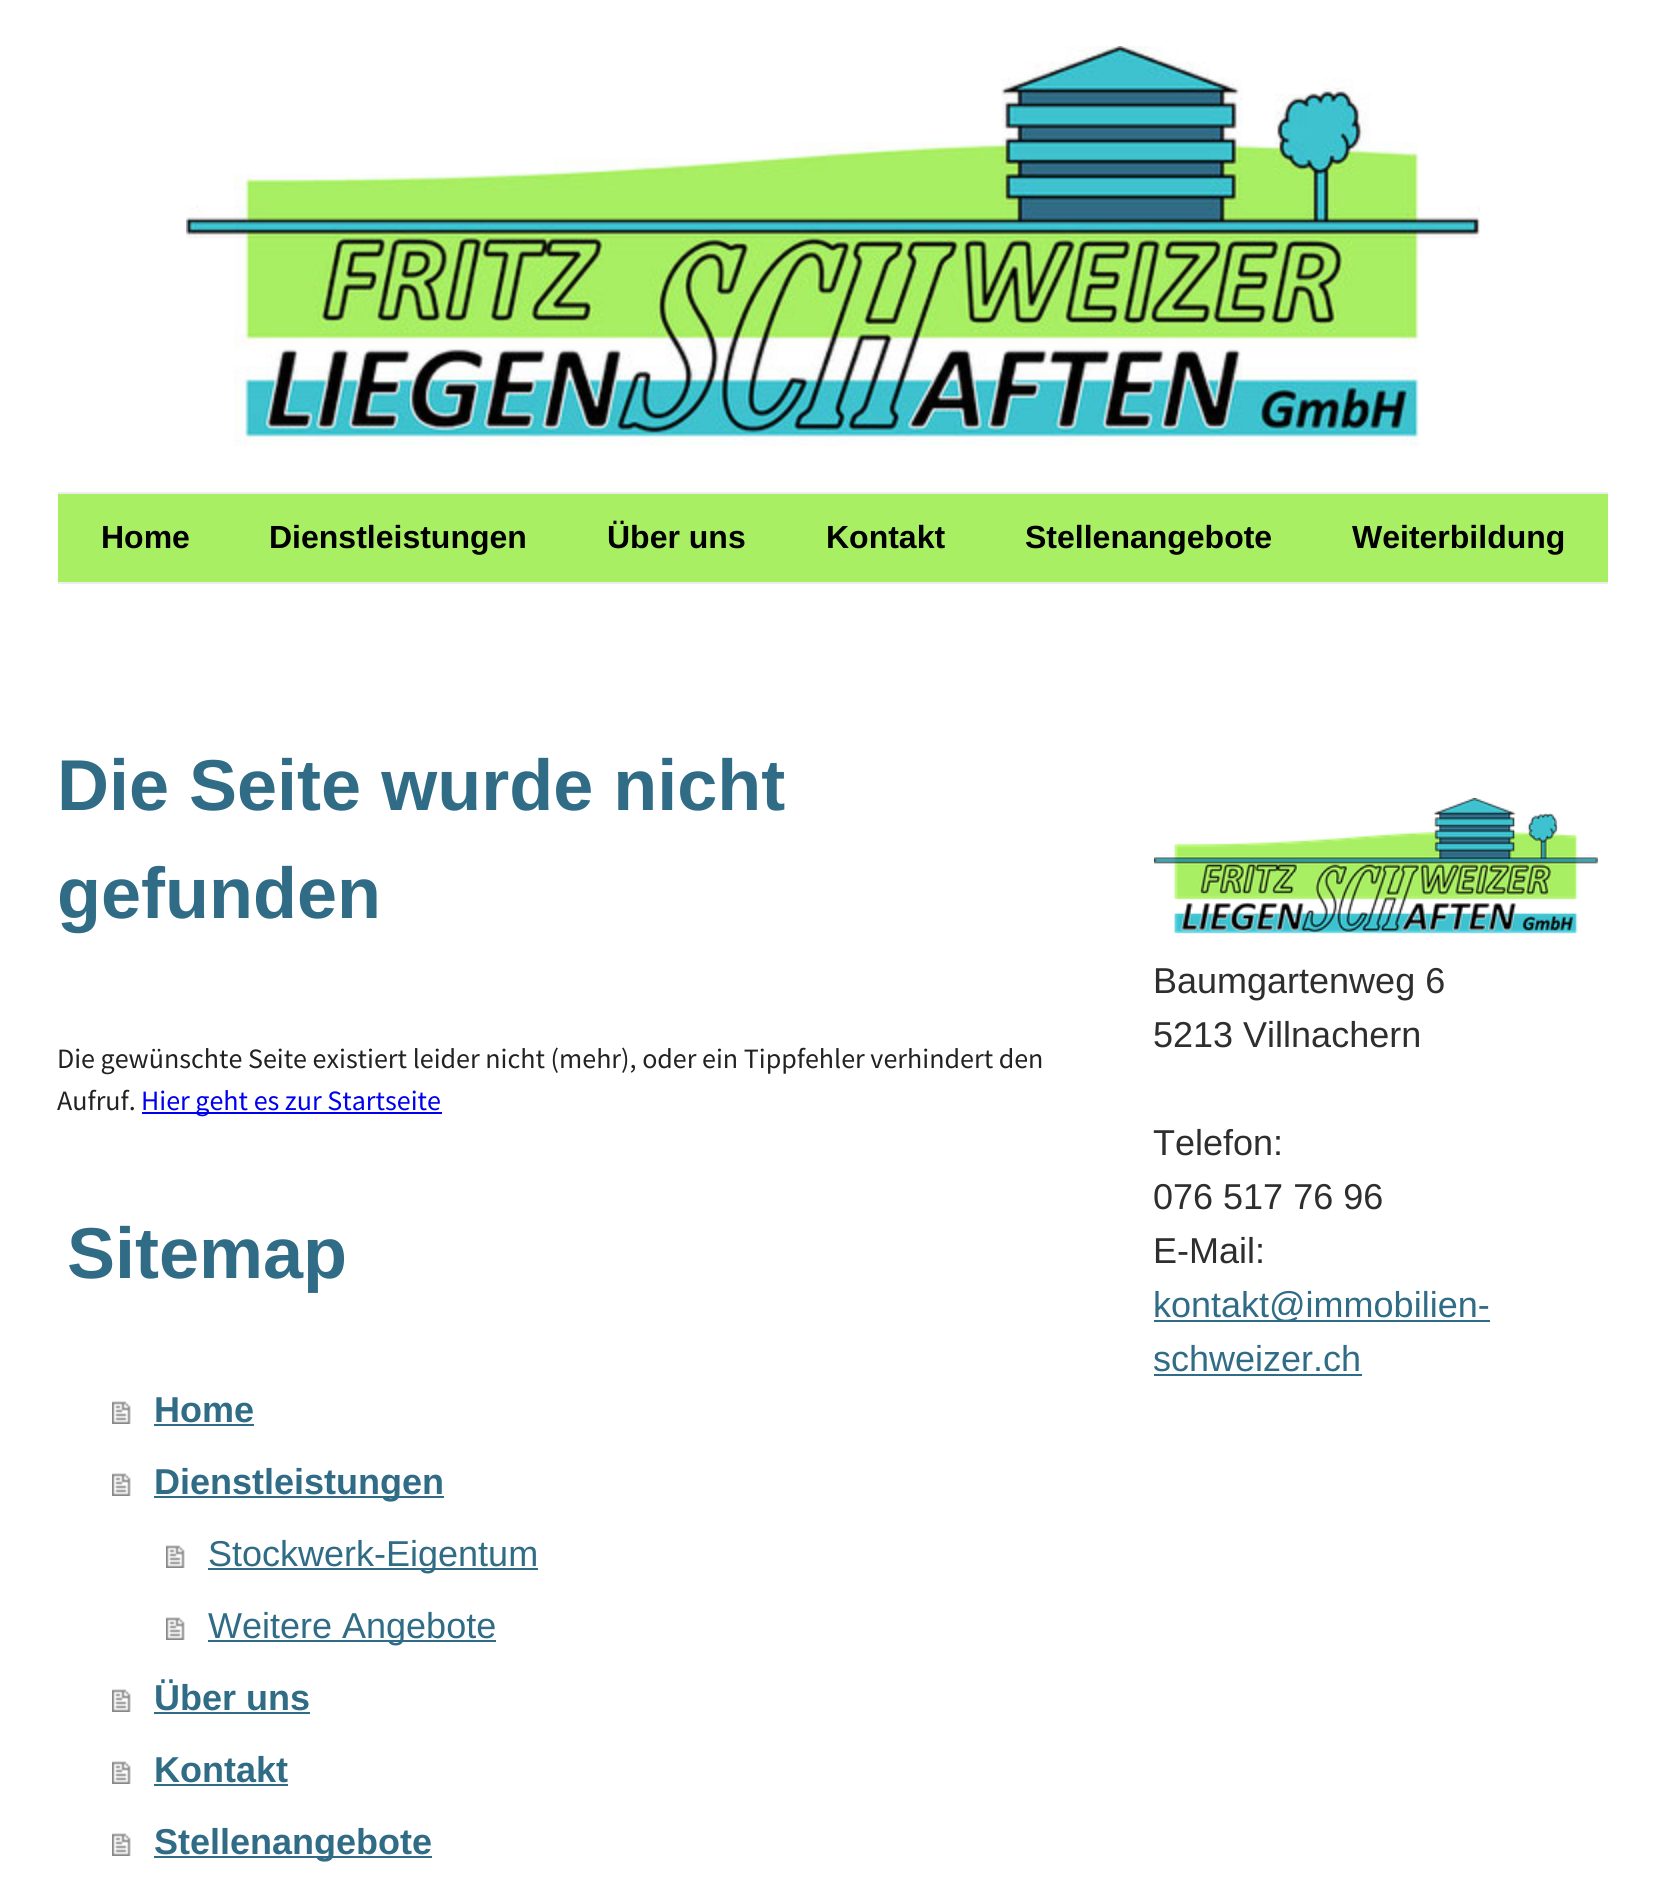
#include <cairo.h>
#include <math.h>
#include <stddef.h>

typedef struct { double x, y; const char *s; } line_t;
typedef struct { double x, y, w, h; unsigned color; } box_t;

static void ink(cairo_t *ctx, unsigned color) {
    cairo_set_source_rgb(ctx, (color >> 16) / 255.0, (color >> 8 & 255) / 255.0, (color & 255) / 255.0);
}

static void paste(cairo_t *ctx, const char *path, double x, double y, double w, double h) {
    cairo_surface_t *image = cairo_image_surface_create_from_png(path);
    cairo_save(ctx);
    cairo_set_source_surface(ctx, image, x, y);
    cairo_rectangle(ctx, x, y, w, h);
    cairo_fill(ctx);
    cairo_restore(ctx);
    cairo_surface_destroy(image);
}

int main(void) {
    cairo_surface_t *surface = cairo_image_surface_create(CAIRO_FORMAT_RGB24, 1665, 1880);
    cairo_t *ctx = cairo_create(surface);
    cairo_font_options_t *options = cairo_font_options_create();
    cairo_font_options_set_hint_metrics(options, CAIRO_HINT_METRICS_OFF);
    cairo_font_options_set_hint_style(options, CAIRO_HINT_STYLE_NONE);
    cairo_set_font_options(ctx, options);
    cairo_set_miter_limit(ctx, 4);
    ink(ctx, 0xFFFFFF);
    cairo_paint(ctx);
    paste(ctx, "media/1.png", 186, 46, 1294, 400);
    {
        static const box_t items[] = {
            {58, 494, 1550, 88, 0xA9EF64},
            {58, 492, 1550, 2, 0xEDEDED},
            {58, 582, 1550, 2, 0xEDEDED},
        };
        for (size_t i = 0; i < sizeof items / sizeof *items; i++) {
            ink(ctx, items[i].color);
            cairo_rectangle(ctx, items[i].x, items[i].y, items[i].w, items[i].h);
            cairo_fill(ctx);
        }
    }
    cairo_select_font_face(ctx, "Liberation Sans", CAIRO_FONT_SLANT_NORMAL, CAIRO_FONT_WEIGHT_BOLD);
    cairo_set_font_size(ctx, 32);
    ink(ctx, 0x000000);
    {
        static const line_t items[] = {
            {101, 548, "Home"},
            {269, 548, "Dienstleistungen"},
            {607, 548, "Über uns"},
            {826, 548, "Kontakt"},
            {1025, 548, "Stellenangebote"},
            {1352, 548, "Weiterbildung"},
        };
        for (size_t i = 0; i < sizeof items / sizeof *items; i++) {
            cairo_move_to(ctx, items[i].x, items[i].y);
            cairo_show_text(ctx, items[i].s);
        }
    }
    cairo_set_font_size(ctx, 72);
    ink(ctx, 0x306C86);
    cairo_move_to(ctx, 57, 810);
    cairo_show_text(ctx, "Die Seite wurde nicht");
    cairo_move_to(ctx, 57, 918);
    cairo_show_text(ctx, "gefunden");
    cairo_select_font_face(ctx, "Source Sans Pro", CAIRO_FONT_SLANT_NORMAL, CAIRO_FONT_WEIGHT_NORMAL);
    cairo_set_font_size(ctx, 28);
    ink(ctx, 0x222222);
    cairo_move_to(ctx, 57, 1068);
    cairo_show_text(ctx, "Die gewünschte Seite existiert leider nicht (mehr), oder ein Tippfehler verhindert den");
    cairo_move_to(ctx, 57, 1110);
    cairo_show_text(ctx, "Aufruf.");
    ink(ctx, 0x0000EE);
    cairo_rectangle(ctx, 142, 1112, 300, 2);
    cairo_fill(ctx);
    cairo_move_to(ctx, 141, 1110);
    cairo_show_text(ctx, "Hier geht es zur Startseite");
    cairo_select_font_face(ctx, "Liberation Sans", CAIRO_FONT_SLANT_NORMAL, CAIRO_FONT_WEIGHT_BOLD);
    cairo_set_font_size(ctx, 72);
    ink(ctx, 0x306C86);
    cairo_move_to(ctx, 67, 1278);
    cairo_show_text(ctx, "Sitemap");
    paste(ctx, "media/2.png", 112, 1401, 19, 23);
    cairo_set_font_size(ctx, 36);
    cairo_move_to(ctx, 154, 1422);
    cairo_show_text(ctx, "Home");
    cairo_rectangle(ctx, 154, 1424, 100, 2);
    cairo_fill(ctx);
    paste(ctx, "media/2.png", 112, 1473, 19, 23);
    cairo_rectangle(ctx, 154, 1496, 290, 2);
    cairo_fill(ctx);
    cairo_move_to(ctx, 154, 1494);
    cairo_show_text(ctx, "Dienstleistungen");
    paste(ctx, "media/2.png", 166, 1545, 19, 23);
    cairo_rectangle(ctx, 208, 1568, 330, 2);
    cairo_fill(ctx);
    cairo_select_font_face(ctx, "Liberation Sans", CAIRO_FONT_SLANT_NORMAL, CAIRO_FONT_WEIGHT_NORMAL);
    cairo_move_to(ctx, 208, 1566);
    cairo_show_text(ctx, "Stockwerk-Eigentum");
    paste(ctx, "media/2.png", 166, 1617, 19, 23);
    cairo_rectangle(ctx, 208, 1640, 288, 2);
    cairo_fill(ctx);
    cairo_move_to(ctx, 208, 1638);
    cairo_show_text(ctx, "Weitere Angebote");
    paste(ctx, "media/2.png", 112, 1689, 19, 23);
    cairo_select_font_face(ctx, "Liberation Sans", CAIRO_FONT_SLANT_NORMAL, CAIRO_FONT_WEIGHT_BOLD);
    cairo_move_to(ctx, 154, 1710);
    cairo_show_text(ctx, "Über uns");
    cairo_rectangle(ctx, 154, 1712, 156, 2);
    cairo_fill(ctx);
    paste(ctx, "media/2.png", 112, 1761, 19, 23);
    cairo_move_to(ctx, 154, 1782);
    cairo_show_text(ctx, "Kontakt");
    cairo_rectangle(ctx, 154, 1784, 134, 2);
    cairo_fill(ctx);
    paste(ctx, "media/2.png", 112, 1833, 19, 23);
    cairo_rectangle(ctx, 154, 1856, 278, 2);
    cairo_fill(ctx);
    cairo_move_to(ctx, 154, 1854);
    cairo_show_text(ctx, "Stellenangebote");
    paste(ctx, "media/3.png", 1154, 798, 444, 136);
    cairo_select_font_face(ctx, "Liberation Sans", CAIRO_FONT_SLANT_NORMAL, CAIRO_FONT_WEIGHT_NORMAL);
    ink(ctx, 0x2E2E2E);
    {
        static const line_t items[] = {
            {1153, 993, "Baumgartenweg 6"},
            {1153, 1047, "5213 Villnachern"},
            {1153, 1155, "Telefon:"},
            {1153, 1209, "076 517 76 96"},
            {1153, 1263, "E-Mail:"},
        };
        for (size_t i = 0; i < sizeof items / sizeof *items; i++) {
            cairo_move_to(ctx, items[i].x, items[i].y);
            cairo_show_text(ctx, items[i].s);
        }
    }
    ink(ctx, 0x306C86);
    cairo_rectangle(ctx, 1154, 1320, 336, 2);
    cairo_fill(ctx);
    cairo_move_to(ctx, 1153, 1317);
    cairo_show_text(ctx, "kontakt@immobilien-");
    cairo_move_to(ctx, 1153, 1371);
    cairo_show_text(ctx, "schweizer.ch");
    cairo_rectangle(ctx, 1154, 1374, 208, 2);
    cairo_fill(ctx);
    cairo_surface_write_to_png(surface, "image.png");
    cairo_font_options_destroy(options);
    cairo_destroy(ctx);
    cairo_surface_destroy(surface);
    return 0;
}
